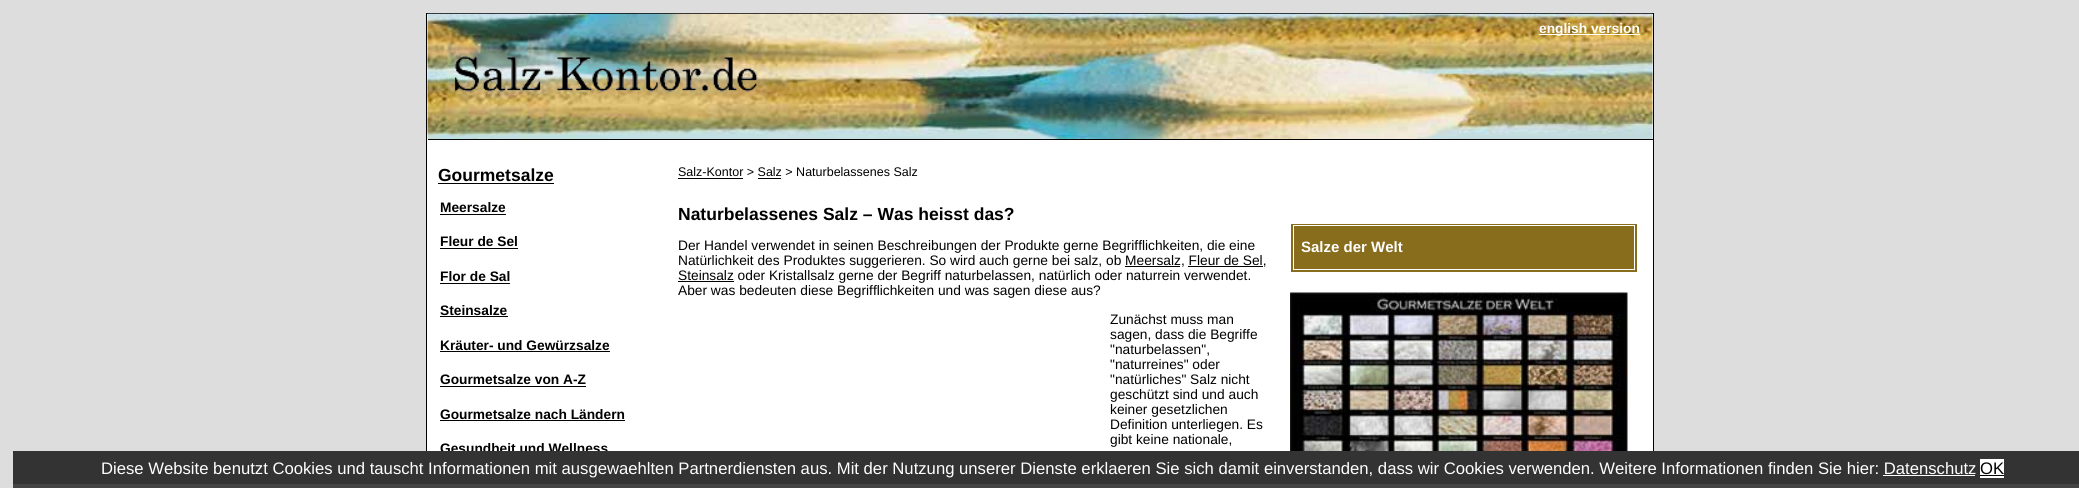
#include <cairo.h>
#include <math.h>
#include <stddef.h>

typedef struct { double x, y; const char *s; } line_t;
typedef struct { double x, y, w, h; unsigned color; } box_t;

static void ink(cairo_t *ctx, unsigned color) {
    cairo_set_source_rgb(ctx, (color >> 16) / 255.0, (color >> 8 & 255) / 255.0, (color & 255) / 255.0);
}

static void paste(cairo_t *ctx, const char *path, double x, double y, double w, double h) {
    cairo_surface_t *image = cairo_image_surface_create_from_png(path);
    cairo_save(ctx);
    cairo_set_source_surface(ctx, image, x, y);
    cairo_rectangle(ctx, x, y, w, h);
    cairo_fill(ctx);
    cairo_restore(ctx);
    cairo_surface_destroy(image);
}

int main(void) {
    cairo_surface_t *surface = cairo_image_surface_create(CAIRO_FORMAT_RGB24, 2079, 488);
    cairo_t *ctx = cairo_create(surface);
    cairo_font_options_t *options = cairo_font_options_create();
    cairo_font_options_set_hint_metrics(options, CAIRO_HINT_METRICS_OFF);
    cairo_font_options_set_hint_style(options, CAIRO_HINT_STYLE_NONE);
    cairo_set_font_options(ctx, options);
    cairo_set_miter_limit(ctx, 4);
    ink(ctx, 0xDDDDDD);
    cairo_paint(ctx);
    ink(ctx, 0xFFFFFF);
    cairo_rectangle(ctx, 427, 14, 1226, 437);
    cairo_fill(ctx);
    cairo_rectangle(ctx, 426.5, 13.5, 1227, 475);
    ink(ctx, 0x000000);
    cairo_set_line_width(ctx, 1);
    cairo_stroke(ctx);
    paste(ctx, "media/1.png", 427, 13, 1226, 127);
    cairo_rectangle(ctx, 428, 139, 1225, 1);
    cairo_fill(ctx);
    ink(ctx, 0xFFFFFF);
    cairo_rectangle(ctx, 1539, 34, 101, 1);
    cairo_fill(ctx);
    cairo_select_font_face(ctx, "Liberation Sans", CAIRO_FONT_SLANT_NORMAL, CAIRO_FONT_WEIGHT_BOLD);
    cairo_set_font_size(ctx, 13.75);
    cairo_move_to(ctx, 1539, 33);
    cairo_show_text(ctx, "english version");
    paste(ctx, "media/2.png", 454, 56, 304, 36);
    cairo_set_font_size(ctx, 17.5);
    ink(ctx, 0x000000);
    cairo_move_to(ctx, 438, 181);
    cairo_show_text(ctx, "Gourmetsalze");
    cairo_rectangle(ctx, 438, 183, 116, 1);
    cairo_fill(ctx);
    cairo_set_font_size(ctx, 13.75);
    cairo_move_to(ctx, 440, 212);
    cairo_show_text(ctx, "Meersalze");
    cairo_rectangle(ctx, 440, 214, 66, 1);
    cairo_fill(ctx);
    cairo_move_to(ctx, 440, 246);
    cairo_show_text(ctx, "Fleur de Sel");
    cairo_rectangle(ctx, 440, 248, 78, 1);
    cairo_fill(ctx);
    cairo_move_to(ctx, 440, 281);
    cairo_show_text(ctx, "Flor de Sal");
    cairo_rectangle(ctx, 440, 283, 70, 1);
    cairo_fill(ctx);
    cairo_move_to(ctx, 440, 315);
    cairo_show_text(ctx, "Steinsalze");
    cairo_rectangle(ctx, 440, 316, 68, 1);
    cairo_fill(ctx);
    cairo_move_to(ctx, 440, 350);
    cairo_show_text(ctx, "Kräuter- und Gewürzsalze");
    cairo_rectangle(ctx, 440, 351, 170, 1);
    cairo_fill(ctx);
    cairo_move_to(ctx, 440, 384);
    cairo_show_text(ctx, "Gourmetsalze von A-Z");
    cairo_rectangle(ctx, 440, 386, 146, 1);
    cairo_fill(ctx);
    cairo_move_to(ctx, 440, 419);
    cairo_show_text(ctx, "Gourmetsalze nach Ländern");
    cairo_rectangle(ctx, 440, 420, 185, 1);
    cairo_fill(ctx);
    cairo_move_to(ctx, 440, 453);
    cairo_show_text(ctx, "Gesundheit und Wellness");
    cairo_select_font_face(ctx, "Liberation Sans", CAIRO_FONT_SLANT_NORMAL, CAIRO_FONT_WEIGHT_NORMAL);
    cairo_set_font_size(ctx, 12.5);
    cairo_move_to(ctx, 678, 176);
    cairo_show_text(ctx, "Salz-Kontor > Salz > Naturbelassenes Salz");
    cairo_rectangle(ctx, 678, 178, 65, 1);
    cairo_fill(ctx);
    cairo_rectangle(ctx, 758, 178, 23, 1);
    cairo_fill(ctx);
    cairo_select_font_face(ctx, "Liberation Sans", CAIRO_FONT_SLANT_NORMAL, CAIRO_FONT_WEIGHT_BOLD);
    cairo_set_font_size(ctx, 17.5);
    cairo_move_to(ctx, 678, 220);
    cairo_show_text(ctx, "Naturbelassenes Salz – Was heisst das?");
    cairo_select_font_face(ctx, "Liberation Sans", CAIRO_FONT_SLANT_NORMAL, CAIRO_FONT_WEIGHT_NORMAL);
    cairo_set_font_size(ctx, 13.75);
    cairo_move_to(ctx, 678, 250);
    cairo_show_text(ctx, "Der Handel verwendet in seinen Beschreibungen der Produkte gerne Begrifflichkeiten, die eine");
    cairo_move_to(ctx, 678, 265);
    cairo_show_text(ctx, "Natürlichkeit des Produktes suggerieren. So wird auch gerne bei salz, ob Meersalz, Fleur de Sel,");
    {
        static const box_t items[] = {
            {1125, 266, 55, 1, 0x000000},
            {1188, 266, 75, 1, 0x000000},
            {678, 281, 56, 1, 0x000000},
        };
        for (size_t i = 0; i < sizeof items / sizeof *items; i++) {
            ink(ctx, items[i].color);
            cairo_rectangle(ctx, items[i].x, items[i].y, items[i].w, items[i].h);
            cairo_fill(ctx);
        }
    }
    {
        static const line_t items[] = {
            {678, 280, "Steinsalz oder Kristallsalz gerne der Begriff naturbelassen, natürlich oder naturrein verwendet."},
            {678, 295, "Aber was bedeuten diese Begrifflichkeiten und was sagen diese aus?"},
            {1110, 324, "Zunächst muss man"},
            {1110, 339, "sagen, dass die Begriffe"},
            {1110, 354, "\"naturbelassen\","},
            {1110, 369, "\"naturreines\" oder"},
            {1110, 384, "\"natürliches\" Salz nicht"},
            {1110, 399, "geschützt sind und auch"},
            {1110, 414, "keiner gesetzlichen"},
            {1110, 429, "Definition unterliegen. Es"},
            {1110, 444, "gibt keine nationale,"},
        };
        for (size_t i = 0; i < sizeof items / sizeof *items; i++) {
            cairo_move_to(ctx, items[i].x, items[i].y);
            cairo_show_text(ctx, items[i].s);
        }
    }
    ink(ctx, 0x886D1C);
    cairo_rectangle(ctx, 1291, 224, 346, 48);
    cairo_fill(ctx);
    cairo_rectangle(ctx, 1293.5, 225.5, 341, 44);
    ink(ctx, 0xFFFFFF);
    cairo_stroke(ctx);
    cairo_select_font_face(ctx, "Liberation Sans", CAIRO_FONT_SLANT_NORMAL, CAIRO_FONT_WEIGHT_BOLD);
    cairo_set_font_size(ctx, 15);
    cairo_move_to(ctx, 1301, 252);
    cairo_show_text(ctx, "Salze der Welt");
    paste(ctx, "media/3.png", 1290, 292, 338, 159);
    ink(ctx, 0x333333);
    cairo_rectangle(ctx, 13, 451, 2066, 33);
    cairo_fill(ctx);
    ink(ctx, 0x444444);
    cairo_rectangle(ctx, 13, 484, 2066, 4);
    cairo_fill(ctx);
    cairo_select_font_face(ctx, "Liberation Sans", CAIRO_FONT_SLANT_NORMAL, CAIRO_FONT_WEIGHT_NORMAL);
    cairo_set_font_size(ctx, 16.67);
    ink(ctx, 0xFFFFFF);
    cairo_move_to(ctx, 101, 474);
    cairo_show_text(ctx, "Diese Website benutzt Cookies und tauscht Informationen mit ausgewaehlten Partnerdiensten aus. Mit der Nutzung unserer Dienste erklaeren Sie sich damit einverstanden, dass wir Cookies verwenden. Weitere Informationen finden Sie hier: Datenschutz");
    cairo_rectangle(ctx, 1883, 475, 92, 1);
    cairo_fill(ctx);
    cairo_rectangle(ctx, 1980, 459, 24, 19);
    cairo_fill(ctx);
    ink(ctx, 0x000000);
    cairo_move_to(ctx, 1980, 474);
    cairo_show_text(ctx, "OK");
    ink(ctx, 0x020202);
    cairo_rectangle(ctx, 1980, 475, 24, 1);
    cairo_fill(ctx);
    cairo_surface_write_to_png(surface, "image.png");
    cairo_font_options_destroy(options);
    cairo_destroy(ctx);
    cairo_surface_destroy(surface);
    return 0;
}
